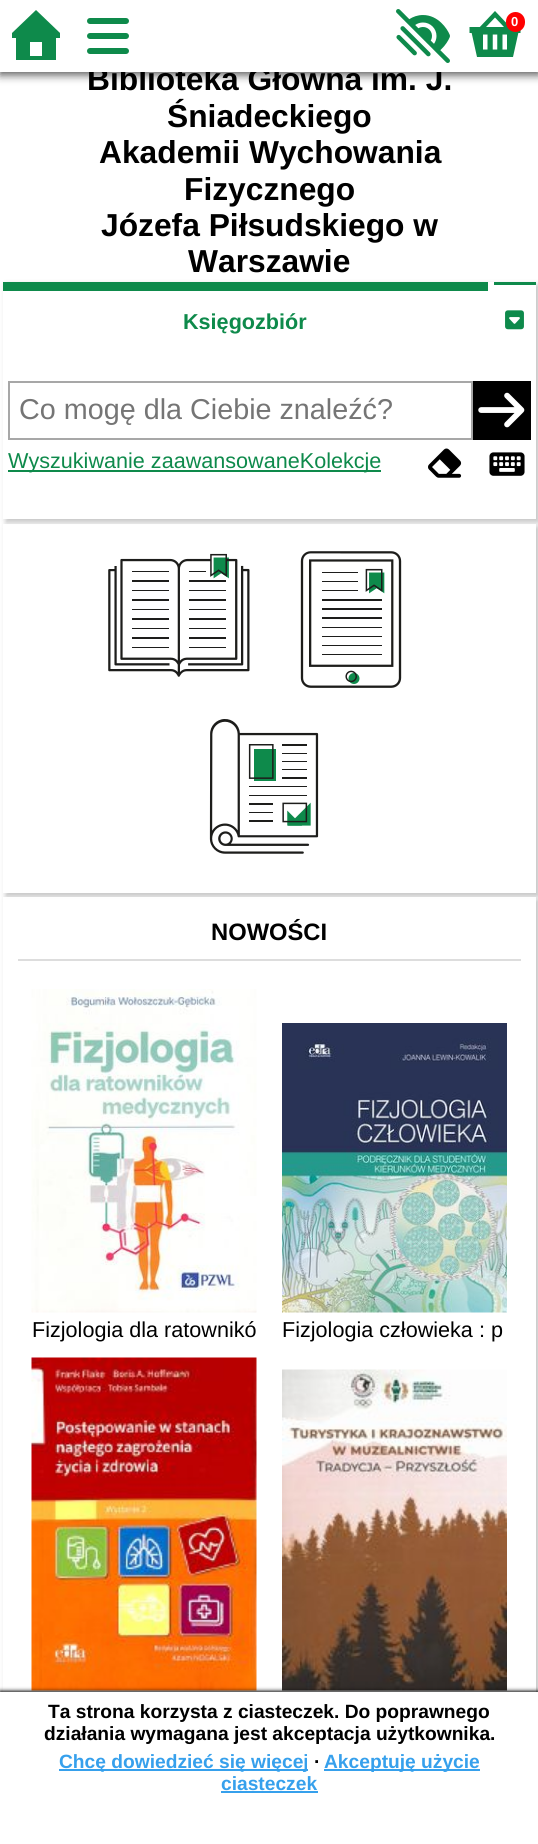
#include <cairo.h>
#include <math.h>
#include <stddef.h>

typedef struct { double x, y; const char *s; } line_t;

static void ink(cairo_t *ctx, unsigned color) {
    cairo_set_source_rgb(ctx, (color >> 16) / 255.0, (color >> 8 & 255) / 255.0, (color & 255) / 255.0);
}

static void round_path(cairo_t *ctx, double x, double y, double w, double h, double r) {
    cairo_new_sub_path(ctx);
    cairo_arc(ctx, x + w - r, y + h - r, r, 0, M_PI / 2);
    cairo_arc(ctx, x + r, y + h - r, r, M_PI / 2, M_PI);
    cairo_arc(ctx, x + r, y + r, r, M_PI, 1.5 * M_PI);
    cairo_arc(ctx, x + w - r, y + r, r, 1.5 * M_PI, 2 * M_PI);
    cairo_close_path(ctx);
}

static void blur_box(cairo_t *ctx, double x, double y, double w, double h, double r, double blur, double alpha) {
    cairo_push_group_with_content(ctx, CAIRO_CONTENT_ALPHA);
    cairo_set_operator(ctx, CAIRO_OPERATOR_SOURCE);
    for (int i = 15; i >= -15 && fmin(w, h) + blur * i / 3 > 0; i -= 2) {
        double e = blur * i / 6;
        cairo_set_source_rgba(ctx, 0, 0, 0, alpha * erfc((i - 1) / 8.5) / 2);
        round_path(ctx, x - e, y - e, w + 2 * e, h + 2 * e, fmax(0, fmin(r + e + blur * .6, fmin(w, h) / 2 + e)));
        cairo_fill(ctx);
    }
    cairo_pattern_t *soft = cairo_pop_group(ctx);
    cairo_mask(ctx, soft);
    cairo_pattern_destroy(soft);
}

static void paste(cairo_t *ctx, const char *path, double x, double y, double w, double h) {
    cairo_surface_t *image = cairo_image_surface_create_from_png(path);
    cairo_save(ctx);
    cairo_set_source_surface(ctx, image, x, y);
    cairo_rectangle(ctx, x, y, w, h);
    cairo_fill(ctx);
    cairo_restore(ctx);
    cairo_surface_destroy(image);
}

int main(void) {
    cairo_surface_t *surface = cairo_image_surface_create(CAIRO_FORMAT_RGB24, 538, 1844);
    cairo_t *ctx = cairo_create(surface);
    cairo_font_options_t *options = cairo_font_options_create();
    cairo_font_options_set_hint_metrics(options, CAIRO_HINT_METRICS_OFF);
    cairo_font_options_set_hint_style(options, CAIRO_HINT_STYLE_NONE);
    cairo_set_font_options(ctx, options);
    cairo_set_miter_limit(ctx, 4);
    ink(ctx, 0xFFFFFF);
    cairo_paint(ctx);
    ink(ctx, 0x000000);
    blur_box(ctx, 0, 3, 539, 72, 0, 4.5, 0.65);
    cairo_select_font_face(ctx, "Liberation Sans", CAIRO_FONT_SLANT_NORMAL, CAIRO_FONT_WEIGHT_BOLD);
    cairo_set_font_size(ctx, 31.75);
    ink(ctx, 0x000000);
    cairo_move_to(ctx, 87, 90);
    cairo_show_text(ctx, "Biblioteka Główna im. J.");
    ink(ctx, 0xFFFFFF);
    cairo_rectangle(ctx, 0, 0, 538, 72);
    cairo_fill(ctx);
    ink(ctx, 0x0E8A4B);
    cairo_new_path(ctx);
    cairo_move_to(ctx, 60, 38);
    cairo_line_to(ctx, 56, 38);
    cairo_line_to(ctx, 56, 60);
    cairo_line_to(ctx, 16, 60);
    cairo_line_to(ctx, 16, 38);
    cairo_line_to(ctx, 12, 38);
    cairo_line_to(ctx, 12, 33);
    cairo_line_to(ctx, 36, 10);
    cairo_line_to(ctx, 60, 33);
    cairo_close_path(ctx);
    cairo_move_to(ctx, 42, 56);
    cairo_line_to(ctx, 42, 42);
    cairo_line_to(ctx, 30, 42);
    cairo_line_to(ctx, 30, 56);
    cairo_close_path(ctx);
    cairo_fill(ctx);
    paste(ctx, "media/1.png", 87, 18, 42, 36);
    paste(ctx, "media/2.png", 396, 9, 54, 54);
    paste(ctx, "media/3.png", 469, 11, 52, 46);
    ink(ctx, 0xFF0000);
    round_path(ctx, 506, 12, 19, 20, 9.5);
    cairo_fill(ctx);
    cairo_set_font_size(ctx, 13);
    ink(ctx, 0xFFFFFF);
    cairo_move_to(ctx, 511, 26);
    cairo_show_text(ctx, "0");
    cairo_set_font_size(ctx, 31.75);
    ink(ctx, 0x000000);
    {
        static const line_t items[] = {
            {167, 127, "Śniadeckiego"},
            {99, 163, "Akademii Wychowania"},
            {184, 200, "Fizycznego"},
            {101, 236, "Józefa Piłsudskiego w"},
            {188, 272, "Warszawie"},
        };
        for (size_t i = 0; i < sizeof items / sizeof *items; i++) {
            cairo_move_to(ctx, items[i].x, items[i].y);
            cairo_show_text(ctx, items[i].s);
        }
    }
    cairo_save(ctx);
    cairo_set_fill_rule(ctx, CAIRO_FILL_RULE_EVEN_ODD);
    cairo_new_path(ctx);
    cairo_move_to(ctx, 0, 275);
    cairo_line_to(ctx, 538, 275);
    cairo_line_to(ctx, 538, 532);
    cairo_line_to(ctx, 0, 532);
    cairo_close_path(ctx);
    cairo_move_to(ctx, 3, 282);
    cairo_line_to(ctx, 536, 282);
    cairo_line_to(ctx, 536, 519);
    cairo_line_to(ctx, 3, 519);
    cairo_close_path(ctx);
    cairo_clip(ctx);
    ink(ctx, 0x000000);
    blur_box(ctx, 6, 285, 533, 237, 0, 3, 0.25);
    cairo_restore(ctx);
    cairo_set_source_rgba(ctx, 1, 1, 1, 0.95);
    cairo_rectangle(ctx, 535, 282, 1, 237);
    cairo_fill(ctx);
    ink(ctx, 0x0E8A4B);
    cairo_rectangle(ctx, 3, 282, 485, 9);
    cairo_fill(ctx);
    cairo_set_font_size(ctx, 21.6);
    cairo_move_to(ctx, 183, 329);
    cairo_show_text(ctx, "Księgozbiór");
    cairo_rectangle(ctx, 494, 282, 42, 3);
    cairo_fill(ctx);
    paste(ctx, "media/4.png", 505, 310, 19, 20);
    cairo_rectangle(ctx, 9, 382, 463, 57);
    ink(ctx, 0xA7A7A7);
    cairo_stroke(ctx);
    cairo_select_font_face(ctx, "Liberation Sans", CAIRO_FONT_SLANT_NORMAL, CAIRO_FONT_WEIGHT_NORMAL);
    cairo_set_font_size(ctx, 28.75);
    ink(ctx, 0x757575);
    cairo_move_to(ctx, 19, 419);
    cairo_show_text(ctx, "Co mogę dla Ciebie znaleźć?");
    ink(ctx, 0x000000);
    cairo_rectangle(ctx, 473, 381, 58, 59);
    cairo_fill(ctx);
    paste(ctx, "media/5.png", 478, 392, 47, 36);
    ink(ctx, 0x0E8A4B);
    cairo_rectangle(ctx, 8, 470, 373, 2);
    cairo_fill(ctx);
    cairo_set_font_size(ctx, 21.6);
    cairo_move_to(ctx, 8, 468);
    cairo_show_text(ctx, "Wyszukiwanie zaawansowaneKolekcje");
    paste(ctx, "media/6.png", 428, 448, 34, 30);
    paste(ctx, "media/7.png", 489, 452, 36, 24);
    cairo_save(ctx);
    cairo_set_fill_rule(ctx, CAIRO_FILL_RULE_EVEN_ODD);
    cairo_new_path(ctx);
    cairo_move_to(ctx, 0, 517);
    cairo_line_to(ctx, 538, 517);
    cairo_line_to(ctx, 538, 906);
    cairo_line_to(ctx, 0, 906);
    cairo_close_path(ctx);
    cairo_move_to(ctx, 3, 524);
    cairo_line_to(ctx, 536, 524);
    cairo_line_to(ctx, 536, 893);
    cairo_line_to(ctx, 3, 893);
    cairo_close_path(ctx);
    cairo_clip(ctx);
    ink(ctx, 0x000000);
    blur_box(ctx, 6, 527, 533, 369, 0, 3, 0.25);
    cairo_restore(ctx);
    cairo_set_source_rgba(ctx, 1, 1, 1, 0.95);
    cairo_rectangle(ctx, 3, 524, 533, 369);
    cairo_fill(ctx);
    paste(ctx, "media/8.png", 108, 553, 142, 124);
    paste(ctx, "media/9.png", 300, 551, 102, 137);
    paste(ctx, "media/10.png", 209, 719, 110, 135);
    cairo_save(ctx);
    cairo_set_fill_rule(ctx, CAIRO_FILL_RULE_EVEN_ODD);
    cairo_new_path(ctx);
    cairo_move_to(ctx, 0, 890);
    cairo_line_to(ctx, 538, 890);
    cairo_line_to(ctx, 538, 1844);
    cairo_line_to(ctx, 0, 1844);
    cairo_close_path(ctx);
    cairo_move_to(ctx, 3, 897);
    cairo_line_to(ctx, 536, 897);
    cairo_line_to(ctx, 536, 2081);
    cairo_line_to(ctx, 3, 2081);
    cairo_close_path(ctx);
    cairo_clip(ctx);
    ink(ctx, 0x000000);
    blur_box(ctx, 6, 900, 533, 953, 0, 3, 0.25);
    cairo_restore(ctx);
    cairo_rectangle(ctx, 3, 897, 533, 795);
    cairo_fill(ctx);
    ink(ctx, 0xDDDDDD);
    cairo_rectangle(ctx, 18, 959, 503, 2);
    cairo_fill(ctx);
    cairo_select_font_face(ctx, "Liberation Sans", CAIRO_FONT_SLANT_NORMAL, CAIRO_FONT_WEIGHT_BOLD);
    cairo_set_font_size(ctx, 23.75);
    ink(ctx, 0x000000);
    cairo_move_to(ctx, 211, 940);
    cairo_show_text(ctx, "NOWOŚCI");
    paste(ctx, "media/11.png", 31, 989, 226, 324);
    cairo_select_font_face(ctx, "Liberation Sans", CAIRO_FONT_SLANT_NORMAL, CAIRO_FONT_WEIGHT_NORMAL);
    cairo_set_font_size(ctx, 21.6);
    cairo_move_to(ctx, 32, 1337);
    cairo_show_text(ctx, "Fizjologia dla ratownikó");
    paste(ctx, "media/12.png", 282, 1023, 225, 290);
    cairo_move_to(ctx, 282, 1337);
    cairo_show_text(ctx, "Fizjologia człowieka : p");
    paste(ctx, "media/13.png", 31, 1357, 226, 334);
    paste(ctx, "media/14.png", 282, 1369, 225, 322);
    ink(ctx, 0x000000);
    blur_box(ctx, 0, 1691, 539, 153, 0, 2, 1);
    ink(ctx, 0xFFFFFF);
    cairo_rectangle(ctx, 0, 1692, 538, 152);
    cairo_fill(ctx);
    cairo_select_font_face(ctx, "Liberation Sans", CAIRO_FONT_SLANT_NORMAL, CAIRO_FONT_WEIGHT_BOLD);
    cairo_set_font_size(ctx, 19.2);
    ink(ctx, 0x000000);
    cairo_move_to(ctx, 48, 1718);
    cairo_show_text(ctx, "Ta strona korzysta z ciasteczek. Do poprawnego");
    cairo_move_to(ctx, 44, 1740);
    cairo_show_text(ctx, "działania wymagana jest akceptacja użytkownika.");
    ink(ctx, 0x36A0EC);
    cairo_rectangle(ctx, 59, 1769, 249, 2);
    cairo_fill(ctx);
    cairo_move_to(ctx, 59, 1768);
    cairo_show_text(ctx, "Chcę dowiedzieć się więcej");
    ink(ctx, 0x000000);
    cairo_move_to(ctx, 314, 1768);
    cairo_show_text(ctx, "∙");
    ink(ctx, 0x36A0EC);
    cairo_rectangle(ctx, 324, 1769, 156, 2);
    cairo_fill(ctx);
    cairo_move_to(ctx, 324, 1768);
    cairo_show_text(ctx, "Akceptuję użycie");
    cairo_move_to(ctx, 221, 1790);
    cairo_show_text(ctx, "ciasteczek");
    cairo_rectangle(ctx, 221, 1791, 97, 2);
    cairo_fill(ctx);
    cairo_surface_write_to_png(surface, "image.png");
    cairo_font_options_destroy(options);
    cairo_destroy(ctx);
    cairo_surface_destroy(surface);
    return 0;
}
